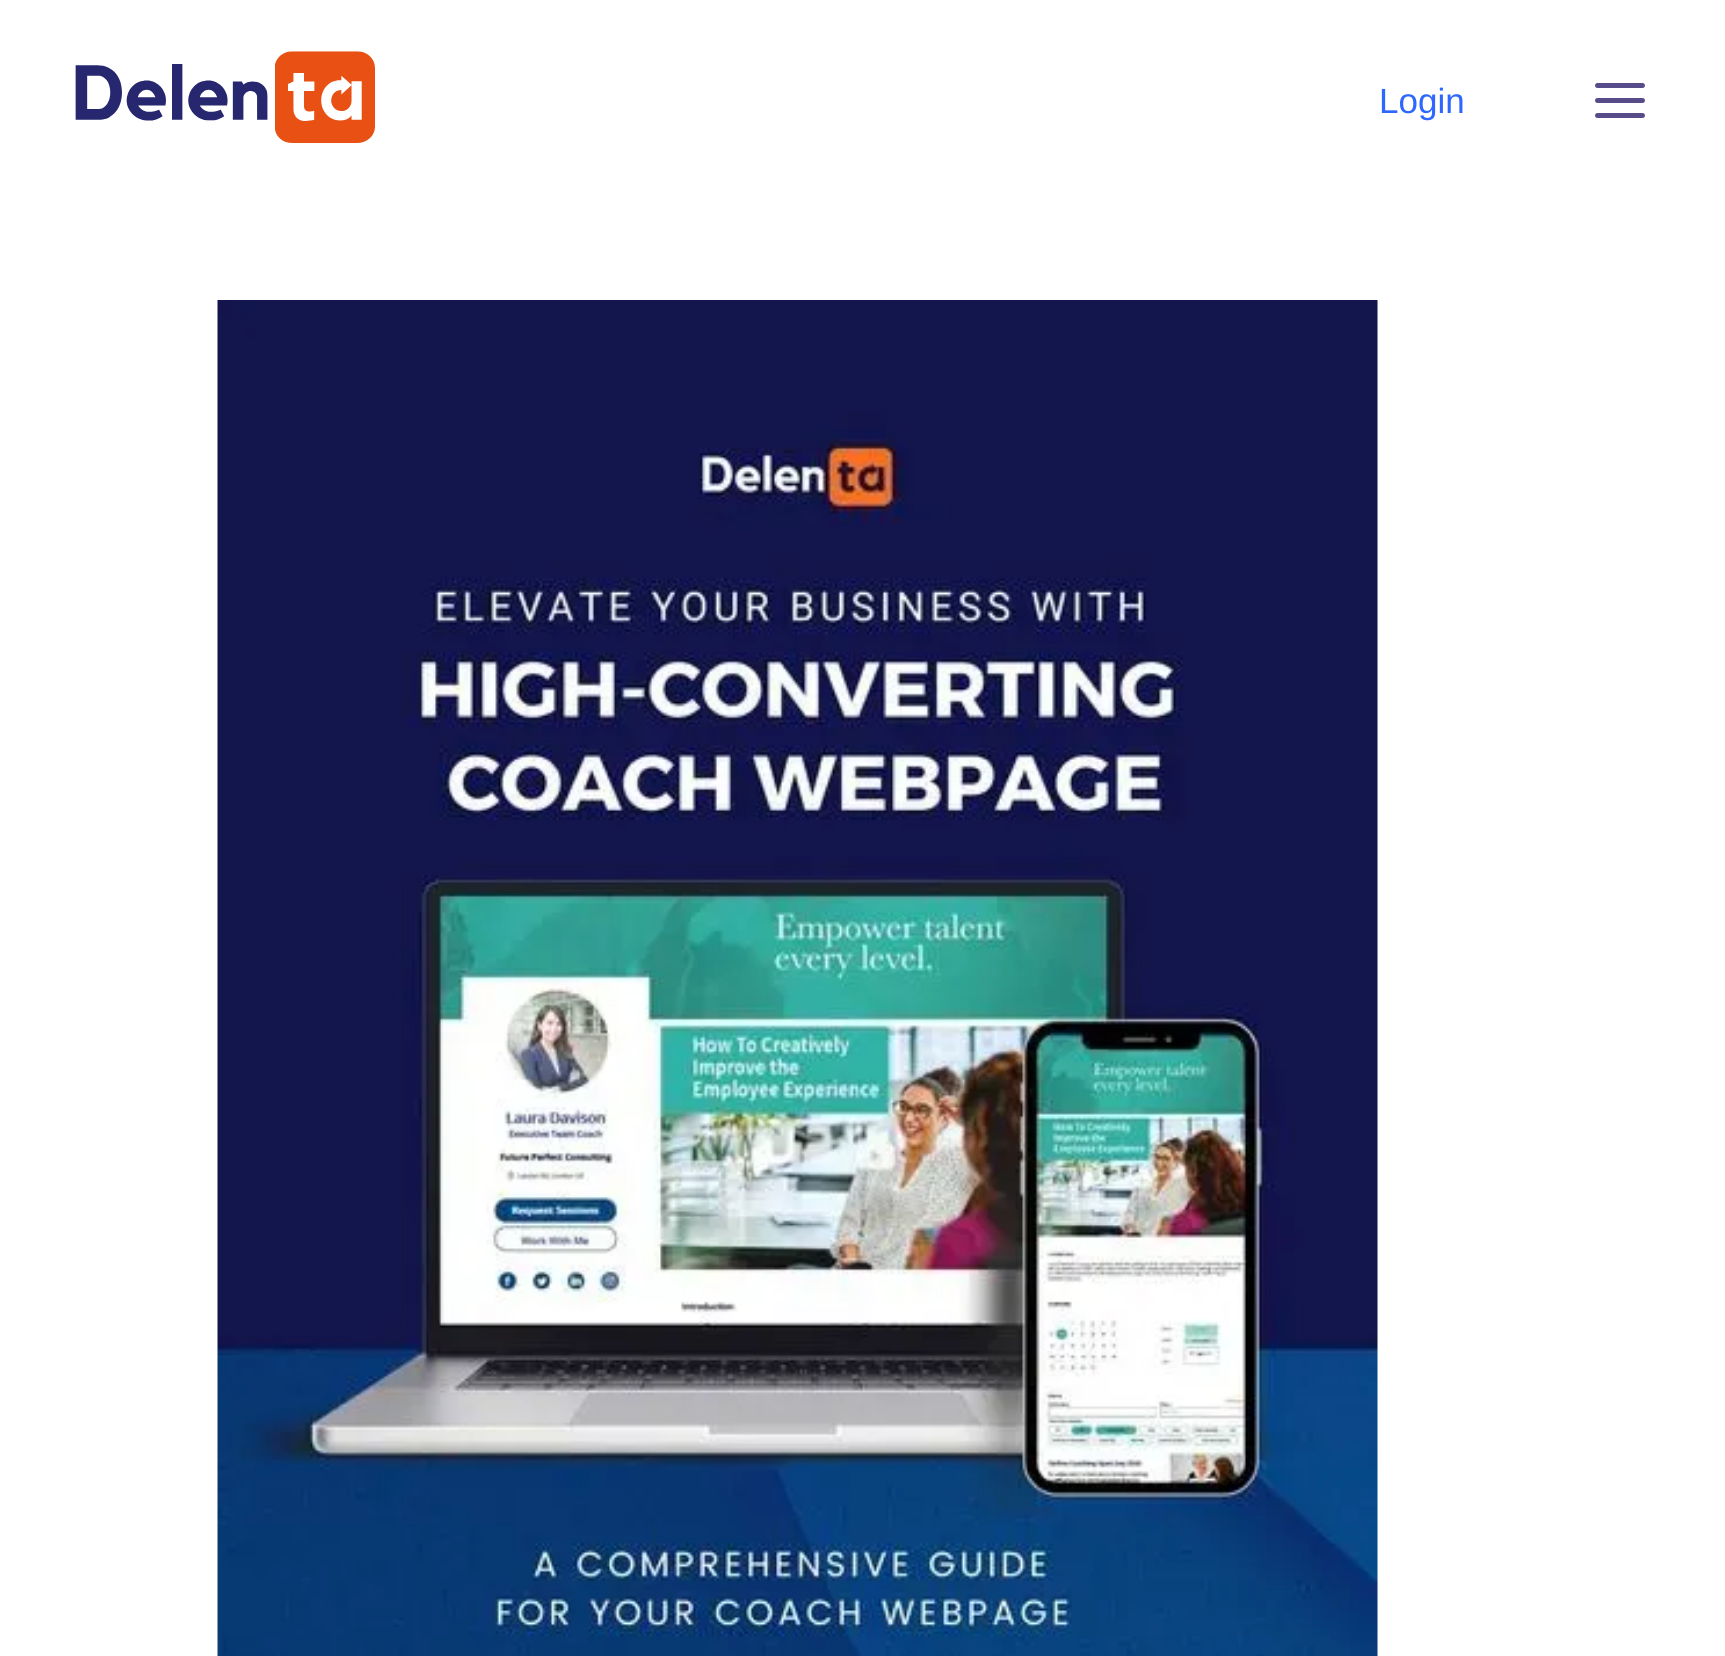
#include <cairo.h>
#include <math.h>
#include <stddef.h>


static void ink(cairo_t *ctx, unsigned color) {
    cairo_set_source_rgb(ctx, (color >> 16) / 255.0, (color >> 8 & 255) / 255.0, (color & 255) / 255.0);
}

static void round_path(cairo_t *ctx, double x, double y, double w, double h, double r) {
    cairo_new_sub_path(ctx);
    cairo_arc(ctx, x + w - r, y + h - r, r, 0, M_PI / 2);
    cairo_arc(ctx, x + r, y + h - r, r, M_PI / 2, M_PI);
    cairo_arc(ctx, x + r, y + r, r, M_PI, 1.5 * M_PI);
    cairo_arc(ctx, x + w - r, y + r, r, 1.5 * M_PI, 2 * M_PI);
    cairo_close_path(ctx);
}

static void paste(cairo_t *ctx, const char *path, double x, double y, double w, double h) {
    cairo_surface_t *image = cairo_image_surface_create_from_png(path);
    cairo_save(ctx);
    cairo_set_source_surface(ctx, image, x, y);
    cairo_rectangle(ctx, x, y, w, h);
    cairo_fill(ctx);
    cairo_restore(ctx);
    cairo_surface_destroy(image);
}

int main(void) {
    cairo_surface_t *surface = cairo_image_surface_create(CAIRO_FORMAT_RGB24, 1725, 1656);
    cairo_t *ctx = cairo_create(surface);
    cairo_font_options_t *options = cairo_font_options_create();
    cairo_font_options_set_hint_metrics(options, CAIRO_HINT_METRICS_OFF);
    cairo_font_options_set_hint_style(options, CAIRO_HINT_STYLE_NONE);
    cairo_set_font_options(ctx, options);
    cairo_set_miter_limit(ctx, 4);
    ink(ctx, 0xFFFFFF);
    cairo_paint(ctx);
    paste(ctx, "media/1.png", 75, 51, 300, 92);
    cairo_select_font_face(ctx, "Liberation Sans", CAIRO_FONT_SLANT_NORMAL, CAIRO_FONT_WEIGHT_NORMAL);
    cairo_set_font_size(ctx, 35);
    ink(ctx, 0x2E67FF);
    cairo_move_to(ctx, 1379, 113);
    cairo_show_text(ctx, "Login");
    ink(ctx, 0x574B8A);
    round_path(ctx, 1595, 83, 50, 5, 2.5);
    cairo_fill(ctx);
    round_path(ctx, 1595, 98, 50, 5, 2.5);
    cairo_fill(ctx);
    round_path(ctx, 1595, 113, 50, 5, 2.5);
    cairo_fill(ctx);
    paste(ctx, "media/2.png", 217, 300, 1161, 1356);
    cairo_surface_write_to_png(surface, "image.png");
    cairo_font_options_destroy(options);
    cairo_destroy(ctx);
    cairo_surface_destroy(surface);
    return 0;
}
